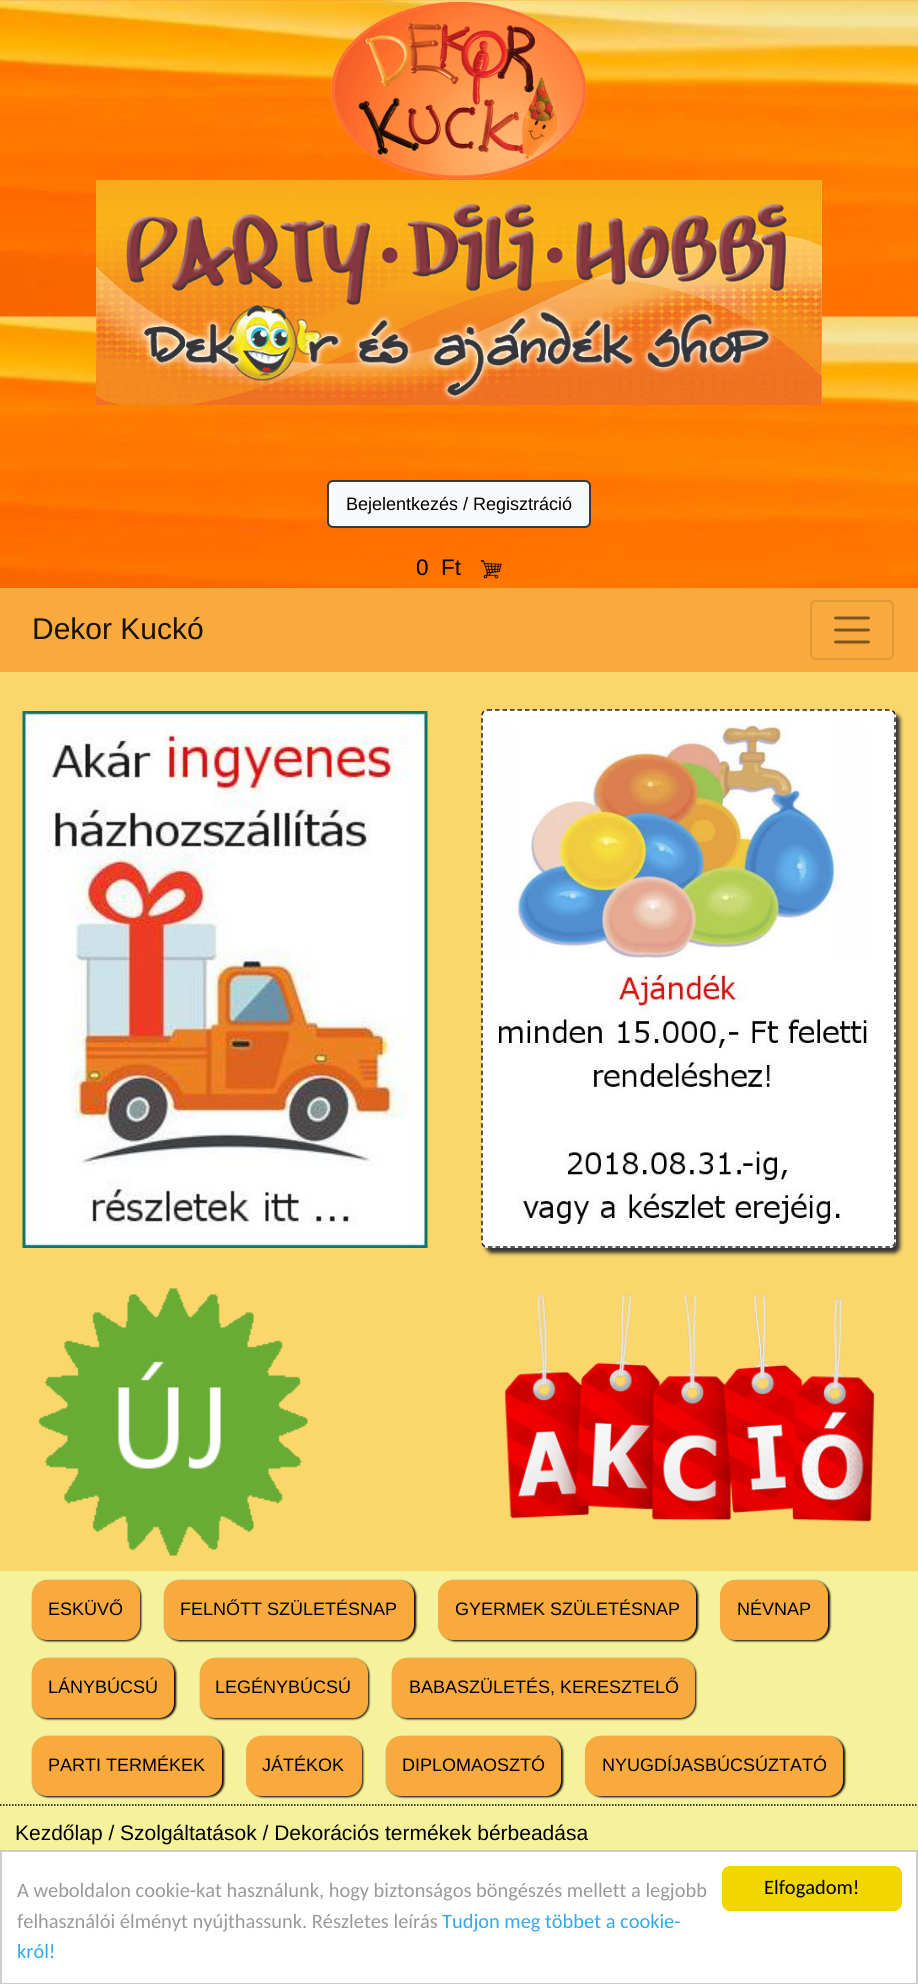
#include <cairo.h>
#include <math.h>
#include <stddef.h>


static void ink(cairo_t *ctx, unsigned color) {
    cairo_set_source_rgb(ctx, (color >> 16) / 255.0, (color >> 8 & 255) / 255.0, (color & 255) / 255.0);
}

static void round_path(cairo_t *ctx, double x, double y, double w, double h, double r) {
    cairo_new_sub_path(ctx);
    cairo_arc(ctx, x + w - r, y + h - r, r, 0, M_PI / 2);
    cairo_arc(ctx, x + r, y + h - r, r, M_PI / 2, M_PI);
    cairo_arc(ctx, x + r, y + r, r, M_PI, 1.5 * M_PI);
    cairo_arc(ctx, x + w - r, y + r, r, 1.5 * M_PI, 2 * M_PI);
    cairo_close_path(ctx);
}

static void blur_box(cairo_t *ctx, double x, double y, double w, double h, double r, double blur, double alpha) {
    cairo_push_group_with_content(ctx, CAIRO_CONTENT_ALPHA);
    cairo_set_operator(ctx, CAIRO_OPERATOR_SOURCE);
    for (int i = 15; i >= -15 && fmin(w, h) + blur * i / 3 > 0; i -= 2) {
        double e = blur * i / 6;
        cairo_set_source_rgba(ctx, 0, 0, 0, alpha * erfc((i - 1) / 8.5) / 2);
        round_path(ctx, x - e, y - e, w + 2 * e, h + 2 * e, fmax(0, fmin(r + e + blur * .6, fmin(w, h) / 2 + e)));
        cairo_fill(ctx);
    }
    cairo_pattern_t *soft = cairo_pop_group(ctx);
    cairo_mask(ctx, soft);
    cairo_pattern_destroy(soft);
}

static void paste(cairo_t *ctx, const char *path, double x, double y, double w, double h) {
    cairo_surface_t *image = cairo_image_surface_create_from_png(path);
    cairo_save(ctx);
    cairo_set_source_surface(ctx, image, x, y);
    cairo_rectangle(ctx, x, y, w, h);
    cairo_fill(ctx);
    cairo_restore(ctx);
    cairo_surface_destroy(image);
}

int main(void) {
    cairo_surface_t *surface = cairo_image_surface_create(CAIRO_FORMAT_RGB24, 918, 1984);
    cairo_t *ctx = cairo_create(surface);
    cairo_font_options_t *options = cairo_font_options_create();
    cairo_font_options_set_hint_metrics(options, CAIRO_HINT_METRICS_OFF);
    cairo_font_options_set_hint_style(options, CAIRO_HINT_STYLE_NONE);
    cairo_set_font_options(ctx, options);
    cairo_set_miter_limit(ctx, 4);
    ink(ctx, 0xF6F29C);
    cairo_paint(ctx);
    paste(ctx, "media/1.png", 0, 0, 918, 588);
    paste(ctx, "media/2.png", 331, 1, 256, 179);
    paste(ctx, "media/3.png", 96, 180, 726, 225);
    ink(ctx, 0xF8F9FA);
    round_path(ctx, 328, 481, 262, 46, 5);
    cairo_fill_preserve(ctx);
    ink(ctx, 0x343A40);
    cairo_stroke(ctx);
    cairo_select_font_face(ctx, "Liberation Sans", CAIRO_FONT_SLANT_NORMAL, CAIRO_FONT_WEIGHT_NORMAL);
    cairo_set_font_size(ctx, 18);
    ink(ctx, 0x000000);
    cairo_move_to(ctx, 346, 510);
    cairo_show_text(ctx, "Bejelentkezés / Regisztráció");
    cairo_set_font_size(ctx, 22.5);
    cairo_move_to(ctx, 416, 575);
    cairo_show_text(ctx, "0  Ft");
    paste(ctx, "media/4.png", 480, 560, 22, 19);
    ink(ctx, 0xF9AA3E);
    cairo_rectangle(ctx, 0, 588, 918, 84);
    cairo_fill(ctx);
    cairo_set_font_size(ctx, 30);
    ink(ctx, 0x191106);
    cairo_move_to(ctx, 32, 639);
    cairo_show_text(ctx, "Dekor Kuckó");
    round_path(ctx, 811, 601, 82, 58, 5);
    ink(ctx, 0xE09938);
    cairo_stroke(ctx);
    cairo_new_path(ctx);
    cairo_move_to(ctx, 835.5, 618);
    cairo_line_to(ctx, 868.5, 618);
    cairo_move_to(ctx, 835.5, 630);
    cairo_line_to(ctx, 868.5, 630);
    cairo_move_to(ctx, 835.5, 642);
    cairo_line_to(ctx, 868.5, 642);
    ink(ctx, 0x7D551F);
    cairo_set_line_width(ctx, 3);
    cairo_set_line_cap(ctx, CAIRO_LINE_CAP_ROUND);
    cairo_stroke(ctx);
    ink(ctx, 0xFAD66B);
    cairo_rectangle(ctx, 0, 672, 918, 899);
    cairo_fill(ctx);
    paste(ctx, "media/5.png", 22, 711, 406, 537);
    ink(ctx, 0x333333);
    blur_box(ctx, 486, 714, 414, 539, 6, 2, 1);
    ink(ctx, 0xFFFFFF);
    round_path(ctx, 482, 710, 414, 538, 6);
    cairo_fill(ctx);
    cairo_new_path(ctx);
    cairo_move_to(ctx, 487.5, 710);
    cairo_line_to(ctx, 889.5, 710);
    cairo_curve_to(ctx, 892.5, 710, 895, 712.5, 895, 715.5);
    cairo_line_to(ctx, 895, 1242);
    cairo_curve_to(ctx, 895, 1245, 892.5, 1247, 889.5, 1247);
    cairo_line_to(ctx, 487.5, 1247);
    cairo_curve_to(ctx, 484.5, 1247, 482, 1245, 482, 1242);
    cairo_line_to(ctx, 482, 715.5);
    cairo_curve_to(ctx, 482, 712.5, 484.5, 710, 487.5, 710);
    cairo_close_path(ctx);
    ink(ctx, 0x222222);
    cairo_set_line_width(ctx, 1.5);
    cairo_set_line_cap(ctx, CAIRO_LINE_CAP_BUTT);
    cairo_set_dash(ctx, (double[]){4.5, 3}, 2, 0);
    cairo_stroke(ctx);
    paste(ctx, "media/6.png", 497, 719, 371, 511);
    paste(ctx, "media/7.png", 38, 1288, 270, 268);
    paste(ctx, "media/8.png", 504, 1294, 371, 228);
    ink(ctx, 0x000000);
    blur_box(ctx, 33, 1581, 108, 60, 15, 1, 1);
    ink(ctx, 0xF9AA3E);
    round_path(ctx, 32, 1580, 108, 60, 15);
    cairo_fill(ctx);
    cairo_set_font_size(ctx, 18);
    ink(ctx, 0x000000);
    cairo_move_to(ctx, 48, 1615);
    cairo_show_text(ctx, "ESKÜVŐ");
    ink(ctx, 0x000000);
    blur_box(ctx, 165, 1581, 251, 60, 15, 1, 1);
    ink(ctx, 0xF9AA3E);
    round_path(ctx, 164, 1580, 250, 60, 15);
    cairo_fill(ctx);
    ink(ctx, 0x000000);
    cairo_move_to(ctx, 180, 1615);
    cairo_show_text(ctx, "FELNŐTT SZÜLETÉSNAP");
    ink(ctx, 0x000000);
    blur_box(ctx, 440, 1581, 258, 60, 15, 1, 1);
    ink(ctx, 0xF9AA3E);
    round_path(ctx, 438, 1580, 258, 60, 15);
    cairo_fill(ctx);
    ink(ctx, 0x000000);
    cairo_move_to(ctx, 455, 1615);
    cairo_show_text(ctx, "GYERMEK SZÜLETÉSNAP");
    ink(ctx, 0x000000);
    blur_box(ctx, 722, 1581, 108, 60, 15, 1, 1);
    ink(ctx, 0xF9AA3E);
    round_path(ctx, 720, 1580, 108, 60, 15);
    cairo_fill(ctx);
    ink(ctx, 0x000000);
    cairo_move_to(ctx, 737, 1615);
    cairo_show_text(ctx, "NÉVNAP");
    ink(ctx, 0x000000);
    blur_box(ctx, 33, 1659, 143, 60, 15, 1, 1);
    ink(ctx, 0xF9AA3E);
    round_path(ctx, 32, 1658, 142, 60, 15);
    cairo_fill(ctx);
    ink(ctx, 0x000000);
    cairo_move_to(ctx, 48, 1693);
    cairo_show_text(ctx, "LÁNYBÚCSÚ");
    ink(ctx, 0x000000);
    blur_box(ctx, 201, 1659, 168, 60, 15, 1, 1);
    ink(ctx, 0xF9AA3E);
    round_path(ctx, 200, 1658, 168, 60, 15);
    cairo_fill(ctx);
    ink(ctx, 0x000000);
    cairo_move_to(ctx, 215, 1693);
    cairo_show_text(ctx, "LEGÉNYBÚCSÚ");
    ink(ctx, 0x000000);
    blur_box(ctx, 393, 1659, 303, 60, 15, 1, 1);
    ink(ctx, 0xF9AA3E);
    round_path(ctx, 392, 1658, 303, 60, 15);
    cairo_fill(ctx);
    ink(ctx, 0x000000);
    cairo_move_to(ctx, 409, 1693);
    cairo_show_text(ctx, "BABASZÜLETÉS, KERESZTELŐ");
    ink(ctx, 0x000000);
    blur_box(ctx, 33, 1737, 191, 60, 15, 1, 1);
    ink(ctx, 0xF9AA3E);
    round_path(ctx, 32, 1736, 190, 60, 15);
    cairo_fill(ctx);
    ink(ctx, 0x000000);
    cairo_move_to(ctx, 48, 1771);
    cairo_show_text(ctx, "PARTI TERMÉKEK");
    ink(ctx, 0x000000);
    blur_box(ctx, 248, 1737, 115, 60, 15, 1, 1);
    ink(ctx, 0xF9AA3E);
    round_path(ctx, 246, 1736, 116, 60, 15);
    cairo_fill(ctx);
    ink(ctx, 0x000000);
    cairo_move_to(ctx, 262, 1771);
    cairo_show_text(ctx, "JÁTÉKOK");
    ink(ctx, 0x000000);
    blur_box(ctx, 387, 1737, 176, 60, 15, 1, 1);
    ink(ctx, 0xF9AA3E);
    round_path(ctx, 386, 1736, 175, 60, 15);
    cairo_fill(ctx);
    ink(ctx, 0x000000);
    cairo_move_to(ctx, 402, 1771);
    cairo_show_text(ctx, "DIPLOMAOSZTÓ");
    ink(ctx, 0x000000);
    blur_box(ctx, 587, 1737, 258, 60, 15, 1, 1);
    ink(ctx, 0xF9AA3E);
    round_path(ctx, 585, 1736, 258, 60, 15);
    cairo_fill(ctx);
    ink(ctx, 0x000000);
    cairo_move_to(ctx, 602, 1771);
    cairo_show_text(ctx, "NYUGDÍJASBÚCSÚZTATÓ");
    cairo_new_path(ctx);
    cairo_move_to(ctx, 0, 1805);
    cairo_line_to(ctx, 918, 1805);
    cairo_set_dash(ctx, (double[]){1.5, 1.5}, 2, 0);
    cairo_stroke(ctx);
    cairo_set_font_size(ctx, 21);
    cairo_move_to(ctx, 15, 1840);
    cairo_show_text(ctx, "Kezdőlap / Szolgáltatások / Dekorációs termékek bérbeadása");
    ink(ctx, 0xFFFFFF);
    cairo_rectangle(ctx, 1, 1851, 916, 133);
    cairo_fill_preserve(ctx);
    ink(ctx, 0xCCCCCC);
    cairo_set_line_width(ctx, 2);
    cairo_set_dash(ctx, NULL, 0, 0);
    cairo_stroke(ctx);
    cairo_select_font_face(ctx, "Carlito", CAIRO_FONT_SLANT_NORMAL, CAIRO_FONT_WEIGHT_NORMAL);
    cairo_set_font_size(ctx, 20.4);
    ink(ctx, 0x999999);
    cairo_move_to(ctx, 17, 1897);
    cairo_show_text(ctx, "A weboldalon cookie-kat használunk, hogy biztonságos böngészés mellett a legjobb");
    cairo_move_to(ctx, 17, 1928);
    cairo_show_text(ctx, "felhasználói élményt nyújthassunk. Részletes leírás");
    ink(ctx, 0x31A8F0);
    cairo_move_to(ctx, 442, 1928);
    cairo_show_text(ctx, "Tudjon meg többet a cookie-");
    cairo_move_to(ctx, 17, 1958);
    cairo_show_text(ctx, "król!");
    ink(ctx, 0xF1D600);
    round_path(ctx, 722, 1866, 180, 45, 8);
    cairo_fill(ctx);
    ink(ctx, 0x000000);
    cairo_move_to(ctx, 764, 1894);
    cairo_show_text(ctx, "Elfogadom!");
    cairo_surface_write_to_png(surface, "image.png");
    cairo_font_options_destroy(options);
    cairo_destroy(ctx);
    cairo_surface_destroy(surface);
    return 0;
}
